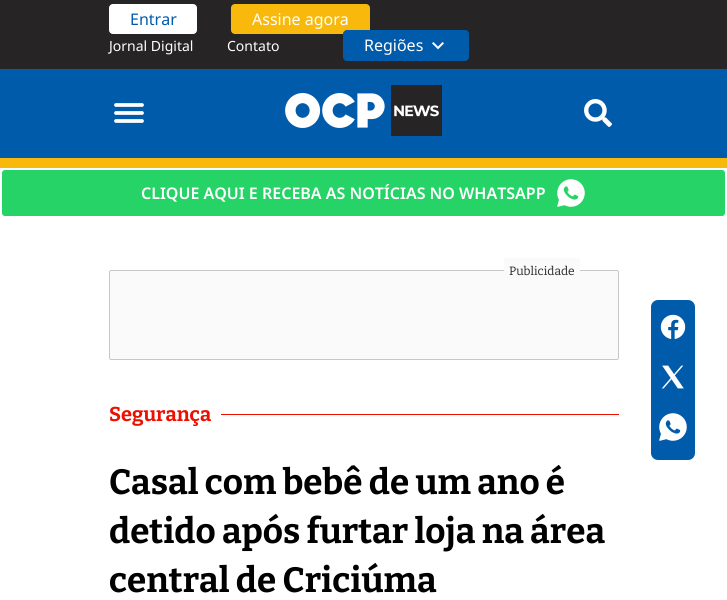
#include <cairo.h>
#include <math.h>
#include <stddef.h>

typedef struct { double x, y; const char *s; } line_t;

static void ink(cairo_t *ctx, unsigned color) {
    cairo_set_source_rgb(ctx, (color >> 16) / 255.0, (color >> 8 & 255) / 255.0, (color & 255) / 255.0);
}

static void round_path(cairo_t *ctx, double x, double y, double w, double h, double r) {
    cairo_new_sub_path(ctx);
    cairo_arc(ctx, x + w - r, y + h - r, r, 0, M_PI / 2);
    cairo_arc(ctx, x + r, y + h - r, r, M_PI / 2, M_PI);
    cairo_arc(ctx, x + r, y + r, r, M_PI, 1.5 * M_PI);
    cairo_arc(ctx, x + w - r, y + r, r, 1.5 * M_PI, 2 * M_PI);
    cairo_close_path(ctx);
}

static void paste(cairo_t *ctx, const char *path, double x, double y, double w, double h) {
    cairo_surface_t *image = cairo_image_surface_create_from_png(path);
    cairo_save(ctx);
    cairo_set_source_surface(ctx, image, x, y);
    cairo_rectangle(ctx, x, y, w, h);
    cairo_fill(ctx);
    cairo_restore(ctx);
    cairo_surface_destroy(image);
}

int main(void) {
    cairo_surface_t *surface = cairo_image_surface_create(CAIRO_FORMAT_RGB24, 727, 600);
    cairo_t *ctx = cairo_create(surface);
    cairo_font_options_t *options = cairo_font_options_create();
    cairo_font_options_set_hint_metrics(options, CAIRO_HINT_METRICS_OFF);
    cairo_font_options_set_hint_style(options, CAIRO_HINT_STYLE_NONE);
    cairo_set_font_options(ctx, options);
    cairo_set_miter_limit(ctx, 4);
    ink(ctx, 0xFFFFFF);
    cairo_paint(ctx);
    ink(ctx, 0x272425);
    cairo_rectangle(ctx, 0, 0, 727, 69);
    cairo_fill(ctx);
    ink(ctx, 0xFFFFFF);
    round_path(ctx, 109.5, 4.5, 87, 29, 3.5);
    cairo_fill_preserve(ctx);
    cairo_set_line_width(ctx, 1);
    cairo_stroke(ctx);
    cairo_select_font_face(ctx, "Noto Sans", CAIRO_FONT_SLANT_NORMAL, CAIRO_FONT_WEIGHT_NORMAL);
    cairo_set_font_size(ctx, 16);
    ink(ctx, 0x005BAA);
    cairo_move_to(ctx, 130, 25);
    cairo_show_text(ctx, "Entrar");
    ink(ctx, 0xF8B90C);
    round_path(ctx, 231.5, 4.5, 138, 29, 3.5);
    cairo_fill_preserve(ctx);
    cairo_stroke(ctx);
    ink(ctx, 0xFFFFFF);
    cairo_move_to(ctx, 252, 25);
    cairo_show_text(ctx, "Assine agora");
    cairo_set_font_size(ctx, 14);
    cairo_move_to(ctx, 109, 51);
    cairo_show_text(ctx, "Jornal Digital");
    cairo_move_to(ctx, 227, 51);
    cairo_show_text(ctx, "Contato");
    ink(ctx, 0x005BAA);
    round_path(ctx, 343.5, 30.5, 125, 30, 3.5);
    cairo_fill_preserve(ctx);
    cairo_stroke(ctx);
    cairo_set_font_size(ctx, 16);
    ink(ctx, 0xFFFFFF);
    cairo_move_to(ctx, 364, 51);
    cairo_show_text(ctx, "Regiões");
    paste(ctx, "media/1.png", 432, 42, 12, 8);
    ink(ctx, 0x005BAA);
    cairo_rectangle(ctx, 0, 69, 727, 89);
    cairo_fill(ctx);
    ink(ctx, 0xF8B90C);
    cairo_rectangle(ctx, 0, 158, 727, 10);
    cairo_fill(ctx);
    cairo_new_path(ctx);
    cairo_move_to(ctx, 116, 105);
    cairo_line_to(ctx, 142, 105);
    cairo_move_to(ctx, 116, 113);
    cairo_line_to(ctx, 142, 113);
    cairo_move_to(ctx, 116, 121);
    cairo_line_to(ctx, 142, 121);
    ink(ctx, 0xFFFFFF);
    cairo_set_line_width(ctx, 3.8);
    cairo_set_line_cap(ctx, CAIRO_LINE_CAP_ROUND);
    cairo_stroke(ctx);
    paste(ctx, "media/2.png", 285, 85, 157, 51);
    paste(ctx, "media/3.png", 584, 99, 28, 28);
    ink(ctx, 0x25D366);
    round_path(ctx, 1, 169, 725, 48, 4);
    cairo_fill_preserve(ctx);
    ink(ctx, 0xFFFFFF);
    cairo_set_line_width(ctx, 2);
    cairo_set_line_cap(ctx, CAIRO_LINE_CAP_BUTT);
    cairo_stroke(ctx);
    cairo_select_font_face(ctx, "Noto Sans SemiBold", CAIRO_FONT_SLANT_NORMAL, CAIRO_FONT_WEIGHT_NORMAL);
    cairo_move_to(ctx, 141, 199);
    cairo_show_text(ctx, "CLIQUE AQUI E RECEBA AS NOTÍCIAS NO WHATSAPP");
    paste(ctx, "media/4.png", 557, 179, 28, 28);
    ink(ctx, 0xFAFAFA);
    round_path(ctx, 109.5, 270.5, 509, 89, 1.5);
    cairo_fill_preserve(ctx);
    ink(ctx, 0xC7C7C7);
    cairo_set_line_width(ctx, 1);
    cairo_stroke(ctx);
    ink(ctx, 0xFAFAFA);
    cairo_rectangle(ctx, 504, 258, 76, 13);
    cairo_fill(ctx);
    cairo_select_font_face(ctx, "Bitter", CAIRO_FONT_SLANT_NORMAL, CAIRO_FONT_WEIGHT_NORMAL);
    cairo_set_font_size(ctx, 12);
    ink(ctx, 0x272425);
    cairo_move_to(ctx, 509, 275);
    cairo_show_text(ctx, "Publicidade");
    ink(ctx, 0x005BAA);
    round_path(ctx, 651, 300, 44, 160, 7);
    cairo_fill(ctx);
    paste(ctx, "media/5.png", 660, 314, 26, 25);
    paste(ctx, "media/6.png", 661, 365, 23, 24);
    paste(ctx, "media/7.png", 659, 413, 28, 28);
    cairo_select_font_face(ctx, "Bitter", CAIRO_FONT_SLANT_NORMAL, CAIRO_FONT_WEIGHT_BOLD);
    cairo_set_font_size(ctx, 20);
    ink(ctx, 0xED0F00);
    cairo_move_to(ctx, 109, 421);
    cairo_show_text(ctx, "Segurança");
    cairo_rectangle(ctx, 221, 414, 398, 1);
    cairo_fill(ctx);
    cairo_set_font_size(ctx, 35);
    ink(ctx, 0x000000);
    {
        static const line_t items[] = {
            {109, 494, "Casal com bebê de um ano é"},
            {109, 543, "detido após furtar loja na área"},
            {109, 592, "central de Criciúma"},
        };
        for (size_t i = 0; i < sizeof items / sizeof *items; i++) {
            cairo_move_to(ctx, items[i].x, items[i].y);
            cairo_show_text(ctx, items[i].s);
        }
    }
    cairo_surface_write_to_png(surface, "image.png");
    cairo_font_options_destroy(options);
    cairo_destroy(ctx);
    cairo_surface_destroy(surface);
    return 0;
}
